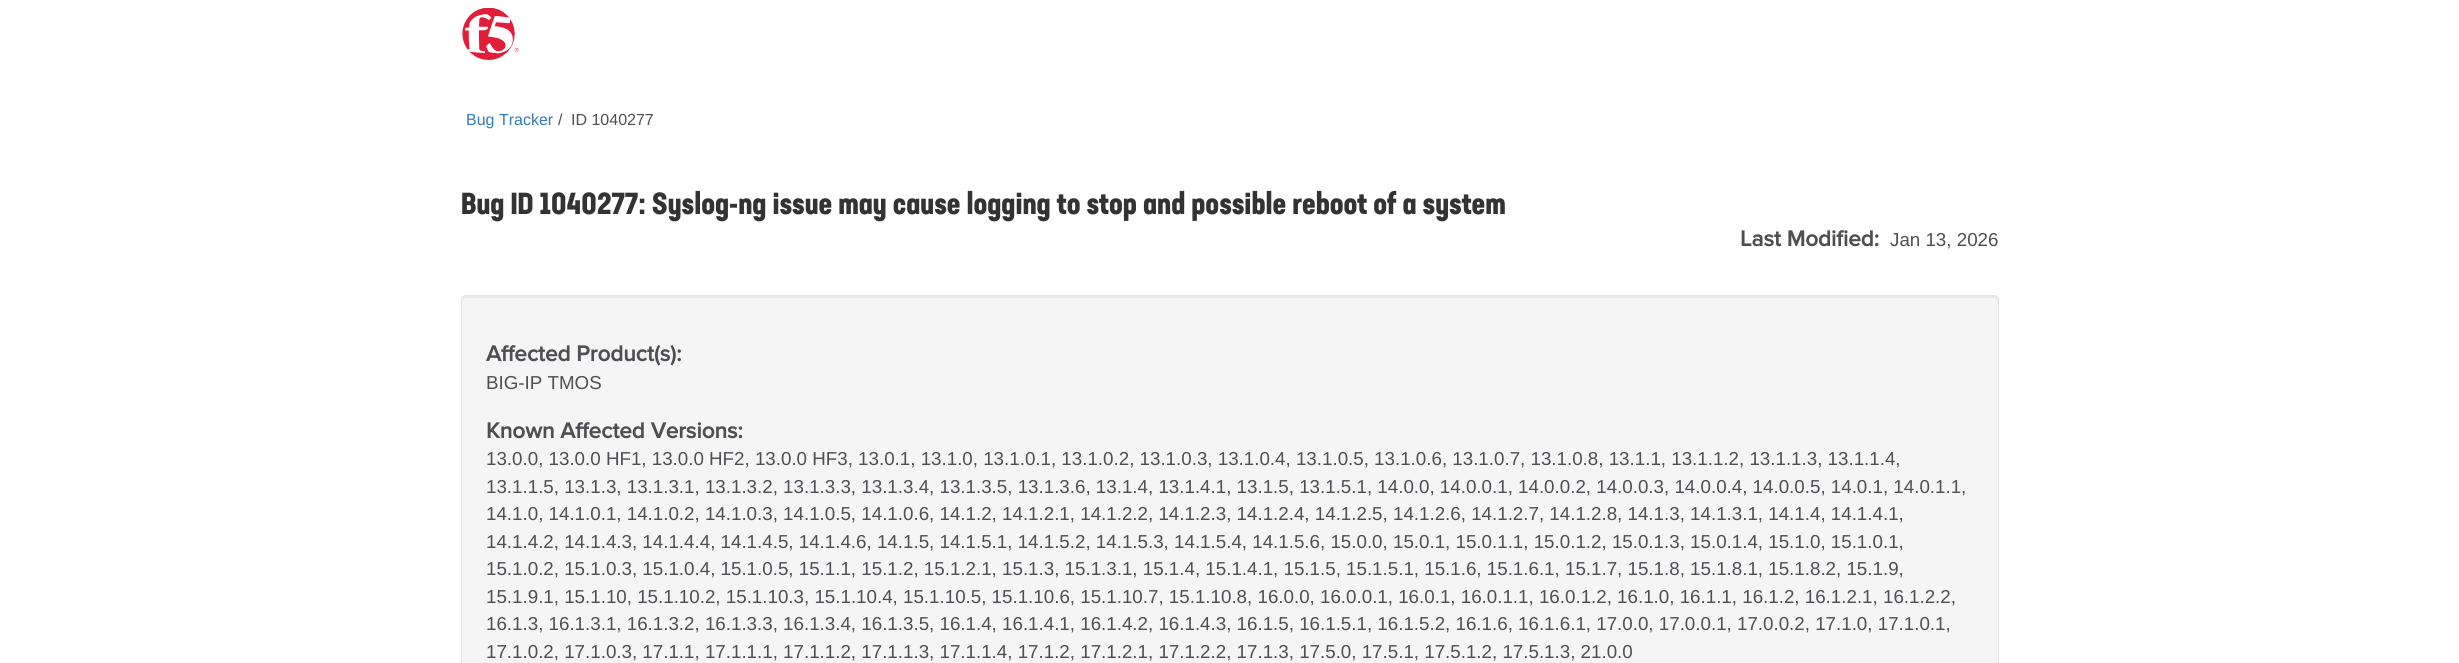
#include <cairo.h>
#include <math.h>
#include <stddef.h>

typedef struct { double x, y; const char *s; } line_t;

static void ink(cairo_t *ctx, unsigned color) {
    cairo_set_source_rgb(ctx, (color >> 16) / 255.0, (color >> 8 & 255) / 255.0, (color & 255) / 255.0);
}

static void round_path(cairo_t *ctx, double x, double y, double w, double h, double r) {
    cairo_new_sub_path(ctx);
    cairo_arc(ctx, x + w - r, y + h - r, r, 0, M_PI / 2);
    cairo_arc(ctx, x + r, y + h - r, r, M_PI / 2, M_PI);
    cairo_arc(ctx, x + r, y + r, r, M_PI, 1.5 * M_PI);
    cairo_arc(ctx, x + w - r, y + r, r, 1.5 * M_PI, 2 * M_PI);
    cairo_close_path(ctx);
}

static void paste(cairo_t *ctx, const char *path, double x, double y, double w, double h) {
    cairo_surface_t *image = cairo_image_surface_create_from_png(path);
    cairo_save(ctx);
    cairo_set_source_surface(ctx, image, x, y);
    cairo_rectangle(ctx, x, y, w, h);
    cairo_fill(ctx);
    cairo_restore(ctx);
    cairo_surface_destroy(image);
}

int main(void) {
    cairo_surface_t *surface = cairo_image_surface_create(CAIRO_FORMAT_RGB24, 2459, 663);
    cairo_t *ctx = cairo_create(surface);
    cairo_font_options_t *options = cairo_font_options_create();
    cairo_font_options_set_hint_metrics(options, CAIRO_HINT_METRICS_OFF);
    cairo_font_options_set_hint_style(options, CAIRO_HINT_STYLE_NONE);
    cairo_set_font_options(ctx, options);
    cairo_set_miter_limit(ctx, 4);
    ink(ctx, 0xFFFFFF);
    cairo_paint(ctx);
    paste(ctx, "media/1.png", 462, 8, 57, 52);
    cairo_select_font_face(ctx, "Liberation Sans", CAIRO_FONT_SLANT_NORMAL, CAIRO_FONT_WEIGHT_NORMAL);
    cairo_set_font_size(ctx, 16);
    ink(ctx, 0x337AB7);
    cairo_move_to(ctx, 466, 125);
    cairo_show_text(ctx, "Bug Tracker");
    ink(ctx, 0x4D4F53);
    cairo_move_to(ctx, 558, 125);
    cairo_show_text(ctx, "/");
    cairo_move_to(ctx, 571, 125);
    cairo_show_text(ctx, "ID 1040277");
    cairo_select_font_face(ctx, "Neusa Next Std", CAIRO_FONT_SLANT_NORMAL, CAIRO_FONT_WEIGHT_BOLD);
    cairo_set_font_size(ctx, 30);
    ink(ctx, 0x333333);
    cairo_move_to(ctx, 461, 214);
    cairo_show_text(ctx, "Bug ID 1040277: Syslog-ng issue may cause logging to stop and possible reboot of a system");
    cairo_select_font_face(ctx, "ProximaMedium", CAIRO_FONT_SLANT_NORMAL, CAIRO_FONT_WEIGHT_BOLD);
    cairo_set_font_size(ctx, 22.5);
    ink(ctx, 0x4D4F53);
    cairo_move_to(ctx, 1740, 246);
    cairo_show_text(ctx, "Last Modified:");
    cairo_select_font_face(ctx, "Liberation Sans", CAIRO_FONT_SLANT_NORMAL, CAIRO_FONT_WEIGHT_NORMAL);
    cairo_set_font_size(ctx, 18.75);
    cairo_move_to(ctx, 1890, 246);
    cairo_show_text(ctx, "Jan 13, 2026");
    ink(ctx, 0xF5F5F5);
    round_path(ctx, 461, 295, 1538, 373, 5);
    cairo_fill(ctx);
    ink(ctx, 0xE9E9E9);
    cairo_new_path(ctx);
    cairo_move_to(ctx, 466, 298);
    cairo_line_to(ctx, 1994, 298);
    cairo_curve_to(ctx, 1996, 298, 1998, 299, 1998, 301);
    cairo_line_to(ctx, 1998, 300);
    cairo_curve_to(ctx, 1998, 298, 1996, 296, 1994, 296);
    cairo_line_to(ctx, 467, 296);
    cairo_curve_to(ctx, 465, 296, 464, 297, 463, 299);
    cairo_close_path(ctx);
    cairo_fill(ctx);
    round_path(ctx, 461.5, 295.5, 1537, 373, 4.5);
    ink(ctx, 0xE3E3E3);
    cairo_set_line_width(ctx, 1);
    cairo_stroke(ctx);
    cairo_select_font_face(ctx, "ProximaMedium", CAIRO_FONT_SLANT_NORMAL, CAIRO_FONT_WEIGHT_BOLD);
    cairo_set_font_size(ctx, 22.5);
    ink(ctx, 0x4D4F53);
    cairo_move_to(ctx, 486, 361);
    cairo_show_text(ctx, "Affected Product(s):");
    cairo_select_font_face(ctx, "Liberation Sans", CAIRO_FONT_SLANT_NORMAL, CAIRO_FONT_WEIGHT_NORMAL);
    cairo_set_font_size(ctx, 18.75);
    cairo_move_to(ctx, 486, 389);
    cairo_show_text(ctx, "BIG-IP TMOS");
    cairo_select_font_face(ctx, "ProximaMedium", CAIRO_FONT_SLANT_NORMAL, CAIRO_FONT_WEIGHT_BOLD);
    cairo_set_font_size(ctx, 22.5);
    cairo_move_to(ctx, 486, 438);
    cairo_show_text(ctx, "Known Affected Versions:");
    cairo_select_font_face(ctx, "Liberation Sans", CAIRO_FONT_SLANT_NORMAL, CAIRO_FONT_WEIGHT_NORMAL);
    cairo_set_font_size(ctx, 18.75);
    {
        static const line_t items[] = {
            {486, 465, "13.0.0, 13.0.0 HF1, 13.0.0 HF2, 13.0.0 HF3, 13.0.1, 13.1.0, 13.1.0.1, 13.1.0.2, 13.1.0.3, 13.1.0.4, 13.1.0.5, 13.1.0.6, 13.1.0.7, 13.1.0.8, 13.1.1, 13.1.1.2, 13.1.1.3, 13.1.1.4,"},
            {486, 493, "13.1.1.5, 13.1.3, 13.1.3.1, 13.1.3.2, 13.1.3.3, 13.1.3.4, 13.1.3.5, 13.1.3.6, 13.1.4, 13.1.4.1, 13.1.5, 13.1.5.1, 14.0.0, 14.0.0.1, 14.0.0.2, 14.0.0.3, 14.0.0.4, 14.0.0.5, 14.0.1, 14.0.1.1,"},
            {486, 520, "14.1.0, 14.1.0.1, 14.1.0.2, 14.1.0.3, 14.1.0.5, 14.1.0.6, 14.1.2, 14.1.2.1, 14.1.2.2, 14.1.2.3, 14.1.2.4, 14.1.2.5, 14.1.2.6, 14.1.2.7, 14.1.2.8, 14.1.3, 14.1.3.1, 14.1.4, 14.1.4.1,"},
            {486, 548, "14.1.4.2, 14.1.4.3, 14.1.4.4, 14.1.4.5, 14.1.4.6, 14.1.5, 14.1.5.1, 14.1.5.2, 14.1.5.3, 14.1.5.4, 14.1.5.6, 15.0.0, 15.0.1, 15.0.1.1, 15.0.1.2, 15.0.1.3, 15.0.1.4, 15.1.0, 15.1.0.1,"},
            {486, 575, "15.1.0.2, 15.1.0.3, 15.1.0.4, 15.1.0.5, 15.1.1, 15.1.2, 15.1.2.1, 15.1.3, 15.1.3.1, 15.1.4, 15.1.4.1, 15.1.5, 15.1.5.1, 15.1.6, 15.1.6.1, 15.1.7, 15.1.8, 15.1.8.1, 15.1.8.2, 15.1.9,"},
            {486, 603, "15.1.9.1, 15.1.10, 15.1.10.2, 15.1.10.3, 15.1.10.4, 15.1.10.5, 15.1.10.6, 15.1.10.7, 15.1.10.8, 16.0.0, 16.0.0.1, 16.0.1, 16.0.1.1, 16.0.1.2, 16.1.0, 16.1.1, 16.1.2, 16.1.2.1, 16.1.2.2,"},
            {486, 630, "16.1.3, 16.1.3.1, 16.1.3.2, 16.1.3.3, 16.1.3.4, 16.1.3.5, 16.1.4, 16.1.4.1, 16.1.4.2, 16.1.4.3, 16.1.5, 16.1.5.1, 16.1.5.2, 16.1.6, 16.1.6.1, 17.0.0, 17.0.0.1, 17.0.0.2, 17.1.0, 17.1.0.1,"},
            {486, 658, "17.1.0.2, 17.1.0.3, 17.1.1, 17.1.1.1, 17.1.1.2, 17.1.1.3, 17.1.1.4, 17.1.2, 17.1.2.1, 17.1.2.2, 17.1.3, 17.5.0, 17.5.1, 17.5.1.2, 17.5.1.3, 21.0.0"},
        };
        for (size_t i = 0; i < sizeof items / sizeof *items; i++) {
            cairo_move_to(ctx, items[i].x, items[i].y);
            cairo_show_text(ctx, items[i].s);
        }
    }
    cairo_surface_write_to_png(surface, "image.png");
    cairo_font_options_destroy(options);
    cairo_destroy(ctx);
    cairo_surface_destroy(surface);
    return 0;
}
